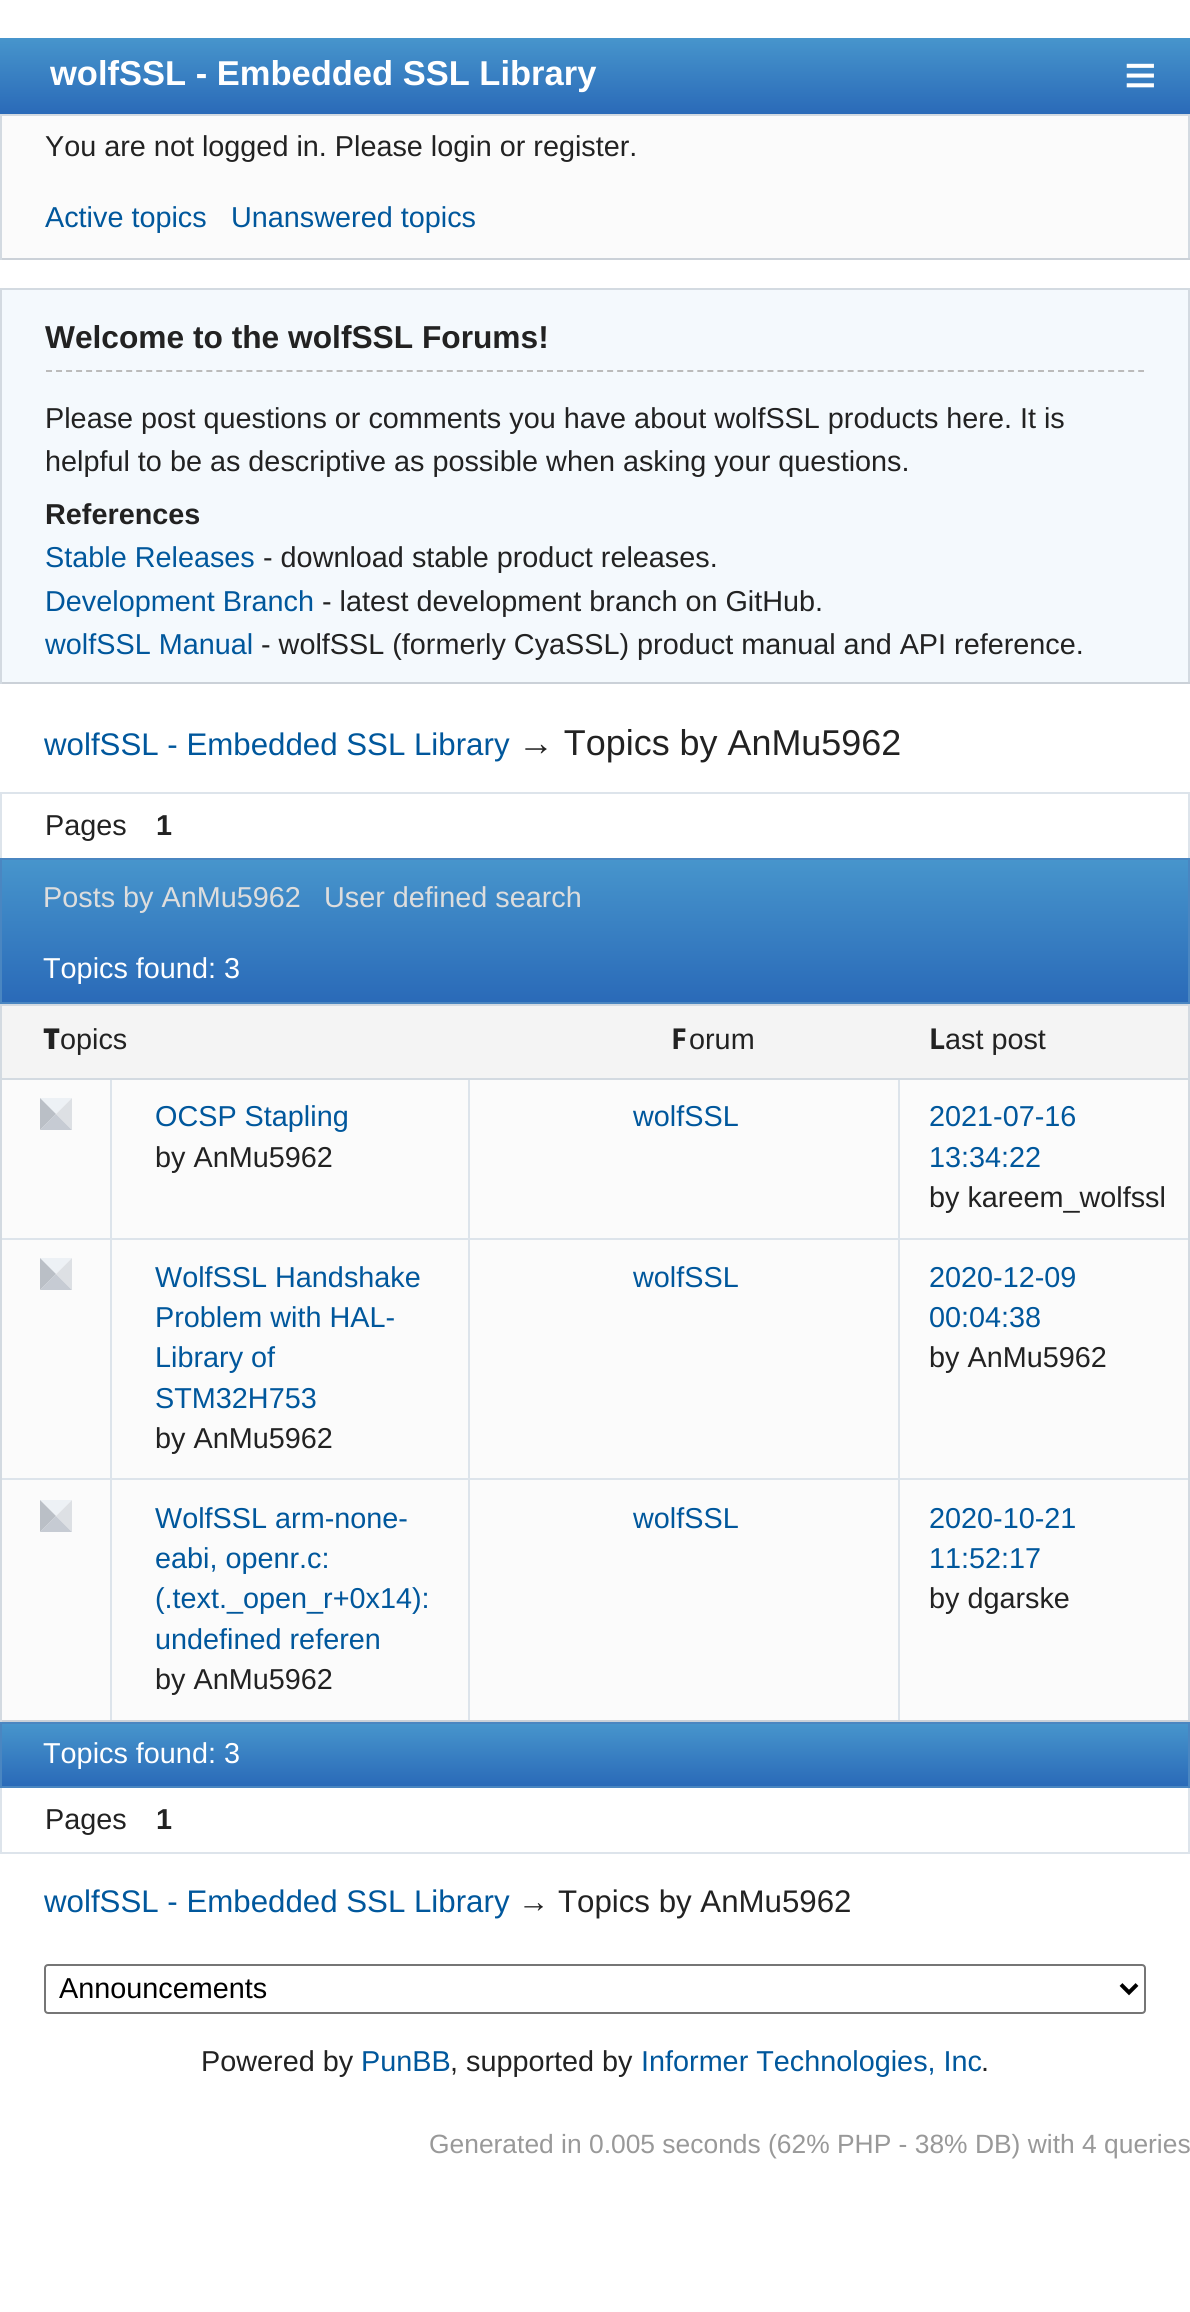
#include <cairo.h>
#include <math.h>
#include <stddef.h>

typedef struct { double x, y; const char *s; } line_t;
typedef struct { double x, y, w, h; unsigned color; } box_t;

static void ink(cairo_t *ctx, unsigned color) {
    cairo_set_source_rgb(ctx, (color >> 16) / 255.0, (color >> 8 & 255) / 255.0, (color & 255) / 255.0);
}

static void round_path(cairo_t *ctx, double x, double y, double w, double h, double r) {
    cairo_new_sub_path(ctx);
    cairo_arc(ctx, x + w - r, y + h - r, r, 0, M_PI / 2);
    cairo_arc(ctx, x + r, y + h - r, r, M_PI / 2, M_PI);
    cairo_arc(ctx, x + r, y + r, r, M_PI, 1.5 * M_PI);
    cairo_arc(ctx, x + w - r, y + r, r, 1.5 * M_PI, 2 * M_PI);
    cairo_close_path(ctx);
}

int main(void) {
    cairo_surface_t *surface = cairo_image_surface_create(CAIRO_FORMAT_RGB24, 1190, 2312);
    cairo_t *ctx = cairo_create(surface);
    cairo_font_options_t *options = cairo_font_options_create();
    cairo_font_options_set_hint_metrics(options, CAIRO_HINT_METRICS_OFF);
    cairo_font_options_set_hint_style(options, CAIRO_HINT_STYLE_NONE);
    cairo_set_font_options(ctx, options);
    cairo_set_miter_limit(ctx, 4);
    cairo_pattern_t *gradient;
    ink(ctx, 0xFFFFFF);
    cairo_paint(ctx);
    gradient = cairo_pattern_create_linear(595, 114, 595, 38);
    cairo_pattern_add_color_stop_rgba(gradient, 0, 0.165, 0.416, 0.722, 1);
    cairo_pattern_add_color_stop_rgba(gradient, 1, 0.278, 0.584, 0.8, 1);
    cairo_set_source(ctx, gradient);
    cairo_pattern_destroy(gradient);
    cairo_rectangle(ctx, 0, 38, 1190, 76);
    cairo_fill(ctx);
    cairo_select_font_face(ctx, "Liberation Sans", CAIRO_FONT_SLANT_NORMAL, CAIRO_FONT_WEIGHT_BOLD);
    cairo_set_font_size(ctx, 34.5);
    ink(ctx, 0xFFFFFF);
    cairo_move_to(ctx, 50, 85);
    cairo_show_text(ctx, "wolfSSL - Embedded SSL Library");
    cairo_select_font_face(ctx, "Liberation Sans", CAIRO_FONT_SLANT_NORMAL, CAIRO_FONT_WEIGHT_NORMAL);
    cairo_set_font_size(ctx, 56);
    cairo_move_to(ctx, 1124, 94);
    cairo_show_text(ctx, "≡");
    {
        static const box_t items[] = {
            {2, 116, 1186, 142, 0xFBFBFB},
            {0, 114, 1190, 2, 0xD3DAE1},
            {1188, 114, 2, 146, 0xD3DAE1},
            {0, 258, 1190, 2, 0xCBD1D8},
            {0, 114, 2, 146, 0xD3DAE1},
        };
        for (size_t i = 0; i < sizeof items / sizeof *items; i++) {
            ink(ctx, items[i].color);
            cairo_rectangle(ctx, items[i].x, items[i].y, items[i].w, items[i].h);
            cairo_fill(ctx);
        }
    }
    cairo_set_font_size(ctx, 28.8);
    ink(ctx, 0x222222);
    cairo_move_to(ctx, 45, 156);
    cairo_show_text(ctx, "You are not logged in. Please login or register.");
    ink(ctx, 0x00579C);
    cairo_move_to(ctx, 45, 227);
    cairo_show_text(ctx, "Active topics");
    cairo_move_to(ctx, 231, 227);
    cairo_show_text(ctx, "Unanswered topics");
    {
        static const box_t items[] = {
            {2, 290, 1186, 392, 0xF4F9FD},
            {0, 288, 1190, 2, 0xD3DAE1},
            {1188, 288, 2, 396, 0xD3DAE1},
            {0, 682, 1190, 2, 0xCBD1D8},
            {0, 288, 2, 396, 0xD3DAE1},
        };
        for (size_t i = 0; i < sizeof items / sizeof *items; i++) {
            ink(ctx, items[i].color);
            cairo_rectangle(ctx, items[i].x, items[i].y, items[i].w, items[i].h);
            cairo_fill(ctx);
        }
    }
    cairo_new_path(ctx);
    cairo_move_to(ctx, 46, 371);
    cairo_line_to(ctx, 1144, 371);
    ink(ctx, 0xBBBBBB);
    cairo_set_dash(ctx, (double[]){6, 4.02}, 2, 0);
    cairo_stroke(ctx);
    cairo_select_font_face(ctx, "Liberation Sans", CAIRO_FONT_SLANT_NORMAL, CAIRO_FONT_WEIGHT_BOLD);
    cairo_set_font_size(ctx, 31.7);
    ink(ctx, 0x222222);
    cairo_move_to(ctx, 45, 348);
    cairo_show_text(ctx, "Welcome to the wolfSSL Forums!");
    cairo_select_font_face(ctx, "Liberation Sans", CAIRO_FONT_SLANT_NORMAL, CAIRO_FONT_WEIGHT_NORMAL);
    cairo_set_font_size(ctx, 28.8);
    cairo_move_to(ctx, 45, 428);
    cairo_show_text(ctx, "Please post questions or comments you have about wolfSSL products here. It is");
    cairo_move_to(ctx, 45, 471);
    cairo_show_text(ctx, "helpful to be as descriptive as possible when asking your questions.");
    cairo_select_font_face(ctx, "Liberation Sans", CAIRO_FONT_SLANT_NORMAL, CAIRO_FONT_WEIGHT_BOLD);
    cairo_move_to(ctx, 45, 524);
    cairo_show_text(ctx, "References");
    cairo_select_font_face(ctx, "Liberation Sans", CAIRO_FONT_SLANT_NORMAL, CAIRO_FONT_WEIGHT_NORMAL);
    ink(ctx, 0x00579C);
    cairo_move_to(ctx, 45, 567);
    cairo_show_text(ctx, "Stable Releases");
    ink(ctx, 0x222222);
    cairo_move_to(ctx, 263, 567);
    cairo_show_text(ctx, "- download stable product releases.");
    ink(ctx, 0x00579C);
    cairo_move_to(ctx, 45, 611);
    cairo_show_text(ctx, "Development Branch");
    ink(ctx, 0x222222);
    cairo_move_to(ctx, 322, 611);
    cairo_show_text(ctx, "- latest development branch on GitHub.");
    ink(ctx, 0x00579C);
    cairo_move_to(ctx, 45, 654);
    cairo_show_text(ctx, "wolfSSL Manual");
    ink(ctx, 0x222222);
    cairo_move_to(ctx, 261, 654);
    cairo_show_text(ctx, "- wolfSSL (formerly CyaSSL) product manual and API reference.");
    cairo_set_font_size(ctx, 31.25);
    ink(ctx, 0x00579C);
    cairo_move_to(ctx, 44, 755);
    cairo_show_text(ctx, "wolfSSL - Embedded SSL Library");
    cairo_set_font_size(ctx, 35.9);
    ink(ctx, 0x222222);
    cairo_move_to(ctx, 518, 755);
    cairo_show_text(ctx, "→ Topics by AnMu5962");
    {
        static const box_t items[] = {
            {0, 792, 1190, 2, 0xDDE4EB},
            {1188, 792, 2, 66, 0xDDE4EB},
            {0, 792, 2, 66, 0xDDE4EB},
        };
        for (size_t i = 0; i < sizeof items / sizeof *items; i++) {
            ink(ctx, items[i].color);
            cairo_rectangle(ctx, items[i].x, items[i].y, items[i].w, items[i].h);
            cairo_fill(ctx);
        }
    }
    cairo_set_font_size(ctx, 28.8);
    ink(ctx, 0x222222);
    cairo_move_to(ctx, 45, 835);
    cairo_show_text(ctx, "Pages");
    cairo_select_font_face(ctx, "Liberation Sans", CAIRO_FONT_SLANT_NORMAL, CAIRO_FONT_WEIGHT_BOLD);
    cairo_move_to(ctx, 156, 835);
    cairo_show_text(ctx, "1");
    gradient = cairo_pattern_create_linear(595, 1002, 595, 860);
    cairo_pattern_add_color_stop_rgba(gradient, 0, 0.165, 0.416, 0.722, 1);
    cairo_pattern_add_color_stop_rgba(gradient, 1, 0.278, 0.584, 0.8, 1);
    cairo_set_source(ctx, gradient);
    cairo_pattern_destroy(gradient);
    cairo_rectangle(ctx, 2, 860, 1186, 142);
    cairo_fill(ctx);
    cairo_rectangle(ctx, 1, 859, 1188, 144);
    ink(ctx, 0x4A86C1);
    cairo_set_dash(ctx, NULL, 0, 0);
    cairo_stroke(ctx);
    cairo_select_font_face(ctx, "Liberation Sans", CAIRO_FONT_SLANT_NORMAL, CAIRO_FONT_WEIGHT_NORMAL);
    ink(ctx, 0xDDDDDD);
    cairo_move_to(ctx, 43, 907);
    cairo_show_text(ctx, "Posts by AnMu5962");
    cairo_move_to(ctx, 324, 907);
    cairo_show_text(ctx, "User defined search");
    ink(ctx, 0xFFFFFF);
    cairo_move_to(ctx, 43, 978);
    cairo_show_text(ctx, "Topics found: 3");
    {
        static const box_t items[] = {
            {2, 1006, 1186, 72, 0xF4F4F4},
            {0, 1004, 1190, 2, 0xD3DAE1},
            {1188, 1004, 2, 74, 0xD3DAE1},
            {0, 1004, 2, 74, 0xD3DAE1},
        };
        for (size_t i = 0; i < sizeof items / sizeof *items; i++) {
            ink(ctx, items[i].color);
            cairo_rectangle(ctx, items[i].x, items[i].y, items[i].w, items[i].h);
            cairo_fill(ctx);
        }
    }
    cairo_select_font_face(ctx, "Noto Sans Black", CAIRO_FONT_SLANT_NORMAL, CAIRO_FONT_WEIGHT_NORMAL);
    ink(ctx, 0x222222);
    cairo_move_to(ctx, 43, 1049);
    cairo_show_text(ctx, "T");
    cairo_select_font_face(ctx, "Liberation Sans", CAIRO_FONT_SLANT_NORMAL, CAIRO_FONT_WEIGHT_NORMAL);
    cairo_move_to(ctx, 60, 1049);
    cairo_show_text(ctx, "opics");
    cairo_select_font_face(ctx, "Noto Sans", CAIRO_FONT_SLANT_NORMAL, CAIRO_FONT_WEIGHT_BOLD);
    cairo_move_to(ctx, 671, 1049);
    cairo_show_text(ctx, "F");
    cairo_select_font_face(ctx, "Liberation Sans", CAIRO_FONT_SLANT_NORMAL, CAIRO_FONT_WEIGHT_NORMAL);
    cairo_move_to(ctx, 689, 1049);
    cairo_show_text(ctx, "orum");
    cairo_select_font_face(ctx, "Noto Sans", CAIRO_FONT_SLANT_NORMAL, CAIRO_FONT_WEIGHT_BOLD);
    cairo_move_to(ctx, 929, 1049);
    cairo_show_text(ctx, "L");
    cairo_select_font_face(ctx, "Liberation Sans", CAIRO_FONT_SLANT_NORMAL, CAIRO_FONT_WEIGHT_NORMAL);
    cairo_move_to(ctx, 945, 1049);
    cairo_show_text(ctx, "ast post");
    {
        static const box_t items[] = {
            {2, 1080, 1186, 640, 0xFBFBFB},
            {0, 1078, 1190, 2, 0xD3DAE1},
            {1188, 1078, 2, 644, 0xD3DAE1},
            {0, 1720, 1190, 2, 0xCBD1D8},
            {0, 1078, 2, 644, 0xD3DAE1},
        };
        for (size_t i = 0; i < sizeof items / sizeof *items; i++) {
            ink(ctx, items[i].color);
            cairo_rectangle(ctx, items[i].x, items[i].y, items[i].w, items[i].h);
            cairo_fill(ctx);
        }
    }
    ink(ctx, 0xEDF1F5);
    cairo_new_path(ctx);
    cairo_move_to(ctx, 40, 1098);
    cairo_line_to(ctx, 72, 1098);
    cairo_line_to(ctx, 56, 1114);
    cairo_close_path(ctx);
    cairo_fill(ctx);
    ink(ctx, 0xDDE0E4);
    cairo_new_path(ctx);
    cairo_move_to(ctx, 72, 1098);
    cairo_line_to(ctx, 72, 1130);
    cairo_line_to(ctx, 56, 1114);
    cairo_close_path(ctx);
    cairo_fill(ctx);
    ink(ctx, 0xC6CBD3);
    cairo_new_path(ctx);
    cairo_move_to(ctx, 72, 1130);
    cairo_line_to(ctx, 40, 1130);
    cairo_line_to(ctx, 56, 1114);
    cairo_close_path(ctx);
    cairo_fill(ctx);
    ink(ctx, 0xBABFC6);
    cairo_new_path(ctx);
    cairo_move_to(ctx, 40, 1130);
    cairo_line_to(ctx, 40, 1098);
    cairo_line_to(ctx, 56, 1114);
    cairo_close_path(ctx);
    cairo_fill(ctx);
    ink(ctx, 0xDDE4EB);
    cairo_rectangle(ctx, 110, 1080, 2, 158);
    cairo_fill(ctx);
    ink(ctx, 0x00579C);
    cairo_move_to(ctx, 155, 1126);
    cairo_show_text(ctx, "OCSP Stapling");
    ink(ctx, 0x222222);
    cairo_move_to(ctx, 155, 1167);
    cairo_show_text(ctx, "by AnMu5962");
    ink(ctx, 0xDDE4EB);
    cairo_rectangle(ctx, 468, 1080, 2, 158);
    cairo_fill(ctx);
    ink(ctx, 0x00579C);
    cairo_move_to(ctx, 633, 1126);
    cairo_show_text(ctx, "wolfSSL");
    ink(ctx, 0xDDE4EB);
    cairo_rectangle(ctx, 898, 1080, 2, 158);
    cairo_fill(ctx);
    ink(ctx, 0x00579C);
    cairo_move_to(ctx, 929, 1126);
    cairo_show_text(ctx, "2021-07-16");
    cairo_move_to(ctx, 929, 1167);
    cairo_show_text(ctx, "13:34:22");
    ink(ctx, 0x222222);
    cairo_move_to(ctx, 929, 1207);
    cairo_show_text(ctx, "by kareem_wolfssl");
    ink(ctx, 0xDDE4EB);
    cairo_rectangle(ctx, 2, 1238, 1186, 2);
    cairo_fill(ctx);
    ink(ctx, 0xEDF1F5);
    cairo_new_path(ctx);
    cairo_move_to(ctx, 40, 1258);
    cairo_line_to(ctx, 72, 1258);
    cairo_line_to(ctx, 56, 1274);
    cairo_close_path(ctx);
    cairo_fill(ctx);
    ink(ctx, 0xDDE0E4);
    cairo_new_path(ctx);
    cairo_move_to(ctx, 72, 1258);
    cairo_line_to(ctx, 72, 1290);
    cairo_line_to(ctx, 56, 1274);
    cairo_close_path(ctx);
    cairo_fill(ctx);
    ink(ctx, 0xC6CBD3);
    cairo_new_path(ctx);
    cairo_move_to(ctx, 72, 1290);
    cairo_line_to(ctx, 40, 1290);
    cairo_line_to(ctx, 56, 1274);
    cairo_close_path(ctx);
    cairo_fill(ctx);
    ink(ctx, 0xBABFC6);
    cairo_new_path(ctx);
    cairo_move_to(ctx, 40, 1290);
    cairo_line_to(ctx, 40, 1258);
    cairo_line_to(ctx, 56, 1274);
    cairo_close_path(ctx);
    cairo_fill(ctx);
    ink(ctx, 0xDDE4EB);
    cairo_rectangle(ctx, 110, 1240, 2, 238);
    cairo_fill(ctx);
    ink(ctx, 0x00579C);
    {
        static const line_t items[] = {
            {155, 1287, "WolfSSL Handshake"},
            {155, 1327, "Problem with HAL-"},
            {155, 1367, "Library of"},
            {155, 1408, "STM32H753"},
        };
        for (size_t i = 0; i < sizeof items / sizeof *items; i++) {
            cairo_move_to(ctx, items[i].x, items[i].y);
            cairo_show_text(ctx, items[i].s);
        }
    }
    ink(ctx, 0x222222);
    cairo_move_to(ctx, 155, 1448);
    cairo_show_text(ctx, "by AnMu5962");
    ink(ctx, 0xDDE4EB);
    cairo_rectangle(ctx, 468, 1240, 2, 238);
    cairo_fill(ctx);
    ink(ctx, 0x00579C);
    cairo_move_to(ctx, 633, 1287);
    cairo_show_text(ctx, "wolfSSL");
    ink(ctx, 0xDDE4EB);
    cairo_rectangle(ctx, 898, 1240, 2, 238);
    cairo_fill(ctx);
    ink(ctx, 0x00579C);
    cairo_move_to(ctx, 929, 1287);
    cairo_show_text(ctx, "2020-12-09");
    cairo_move_to(ctx, 929, 1327);
    cairo_show_text(ctx, "00:04:38");
    ink(ctx, 0x222222);
    cairo_move_to(ctx, 929, 1367);
    cairo_show_text(ctx, "by AnMu5962");
    ink(ctx, 0xDDE4EB);
    cairo_rectangle(ctx, 2, 1478, 1186, 2);
    cairo_fill(ctx);
    ink(ctx, 0xEDF1F5);
    cairo_new_path(ctx);
    cairo_move_to(ctx, 40, 1500);
    cairo_line_to(ctx, 72, 1500);
    cairo_line_to(ctx, 56, 1516);
    cairo_close_path(ctx);
    cairo_fill(ctx);
    ink(ctx, 0xDDE0E4);
    cairo_new_path(ctx);
    cairo_move_to(ctx, 72, 1500);
    cairo_line_to(ctx, 72, 1532);
    cairo_line_to(ctx, 56, 1516);
    cairo_close_path(ctx);
    cairo_fill(ctx);
    ink(ctx, 0xC6CBD3);
    cairo_new_path(ctx);
    cairo_move_to(ctx, 72, 1532);
    cairo_line_to(ctx, 40, 1532);
    cairo_line_to(ctx, 56, 1516);
    cairo_close_path(ctx);
    cairo_fill(ctx);
    ink(ctx, 0xBABFC6);
    cairo_new_path(ctx);
    cairo_move_to(ctx, 40, 1532);
    cairo_line_to(ctx, 40, 1500);
    cairo_line_to(ctx, 56, 1516);
    cairo_close_path(ctx);
    cairo_fill(ctx);
    ink(ctx, 0xDDE4EB);
    cairo_rectangle(ctx, 110, 1480, 2, 240);
    cairo_fill(ctx);
    ink(ctx, 0x00579C);
    {
        static const line_t items[] = {
            {155, 1528, "WolfSSL arm-none-"},
            {155, 1568, "eabi, openr.c:"},
            {155, 1608, "(.text._open_r+0x14):"},
            {155, 1649, "undefined referen"},
        };
        for (size_t i = 0; i < sizeof items / sizeof *items; i++) {
            cairo_move_to(ctx, items[i].x, items[i].y);
            cairo_show_text(ctx, items[i].s);
        }
    }
    ink(ctx, 0x222222);
    cairo_move_to(ctx, 155, 1689);
    cairo_show_text(ctx, "by AnMu5962");
    ink(ctx, 0xDDE4EB);
    cairo_rectangle(ctx, 468, 1480, 2, 240);
    cairo_fill(ctx);
    ink(ctx, 0x00579C);
    cairo_move_to(ctx, 633, 1528);
    cairo_show_text(ctx, "wolfSSL");
    ink(ctx, 0xDDE4EB);
    cairo_rectangle(ctx, 898, 1480, 2, 240);
    cairo_fill(ctx);
    ink(ctx, 0x00579C);
    cairo_move_to(ctx, 929, 1528);
    cairo_show_text(ctx, "2020-10-21");
    cairo_move_to(ctx, 929, 1568);
    cairo_show_text(ctx, "11:52:17");
    ink(ctx, 0x222222);
    cairo_move_to(ctx, 929, 1608);
    cairo_show_text(ctx, "by dgarske");
    gradient = cairo_pattern_create_linear(595, 1786, 595, 1724);
    cairo_pattern_add_color_stop_rgba(gradient, 0, 0.165, 0.416, 0.722, 1);
    cairo_pattern_add_color_stop_rgba(gradient, 1, 0.278, 0.584, 0.8, 1);
    cairo_set_source(ctx, gradient);
    cairo_pattern_destroy(gradient);
    cairo_rectangle(ctx, 2, 1724, 1186, 62);
    cairo_fill(ctx);
    cairo_rectangle(ctx, 1, 1723, 1188, 64);
    ink(ctx, 0x4A86C1);
    cairo_stroke(ctx);
    ink(ctx, 0xFFFFFF);
    cairo_move_to(ctx, 43, 1763);
    cairo_show_text(ctx, "Topics found: 3");
    {
        static const box_t items[] = {
            {1188, 1788, 2, 66, 0xDDE4EB},
            {0, 1852, 1190, 2, 0xDDE4EB},
            {0, 1788, 2, 66, 0xDDE4EB},
        };
        for (size_t i = 0; i < sizeof items / sizeof *items; i++) {
            ink(ctx, items[i].color);
            cairo_rectangle(ctx, items[i].x, items[i].y, items[i].w, items[i].h);
            cairo_fill(ctx);
        }
    }
    ink(ctx, 0x222222);
    cairo_move_to(ctx, 45, 1829);
    cairo_show_text(ctx, "Pages");
    cairo_select_font_face(ctx, "Liberation Sans", CAIRO_FONT_SLANT_NORMAL, CAIRO_FONT_WEIGHT_BOLD);
    cairo_move_to(ctx, 156, 1829);
    cairo_show_text(ctx, "1");
    cairo_select_font_face(ctx, "Liberation Sans", CAIRO_FONT_SLANT_NORMAL, CAIRO_FONT_WEIGHT_NORMAL);
    cairo_set_font_size(ctx, 31.25);
    ink(ctx, 0x00579C);
    cairo_move_to(ctx, 44, 1912);
    cairo_show_text(ctx, "wolfSSL - Embedded SSL Library");
    ink(ctx, 0x222222);
    cairo_move_to(ctx, 518, 1912);
    cairo_show_text(ctx, "→ Topics by AnMu5962");
    round_path(ctx, 45, 1965, 1100, 48, 3);
    ink(ctx, 0x767676);
    cairo_stroke(ctx);
    cairo_new_path(ctx);
    cairo_move_to(ctx, 1121, 1984.5);
    cairo_line_to(ctx, 1129, 1992.5);
    cairo_line_to(ctx, 1137, 1984.5);
    ink(ctx, 0x000000);
    cairo_set_line_width(ctx, 4);
    cairo_stroke(ctx);
    cairo_set_font_size(ctx, 28.8);
    cairo_move_to(ctx, 59, 1998);
    cairo_show_text(ctx, "Announcements");
    ink(ctx, 0x222222);
    cairo_move_to(ctx, 201, 2071);
    cairo_show_text(ctx, "Powered by");
    ink(ctx, 0x00579C);
    cairo_move_to(ctx, 361, 2071);
    cairo_show_text(ctx, "PunBB");
    ink(ctx, 0x222222);
    cairo_move_to(ctx, 450, 2071);
    cairo_show_text(ctx, ", supported by");
    ink(ctx, 0x00579C);
    cairo_move_to(ctx, 641, 2071);
    cairo_show_text(ctx, "Informer Technologies, Inc");
    ink(ctx, 0x222222);
    cairo_move_to(ctx, 981, 2071);
    cairo_show_text(ctx, ".");
    cairo_set_font_size(ctx, 26.4);
    ink(ctx, 0x999999);
    cairo_move_to(ctx, 429, 2153);
    cairo_show_text(ctx, "Generated in 0.005 seconds (62% PHP - 38% DB) with 4 queries");
    cairo_surface_write_to_png(surface, "image.png");
    cairo_font_options_destroy(options);
    cairo_destroy(ctx);
    cairo_surface_destroy(surface);
    return 0;
}
